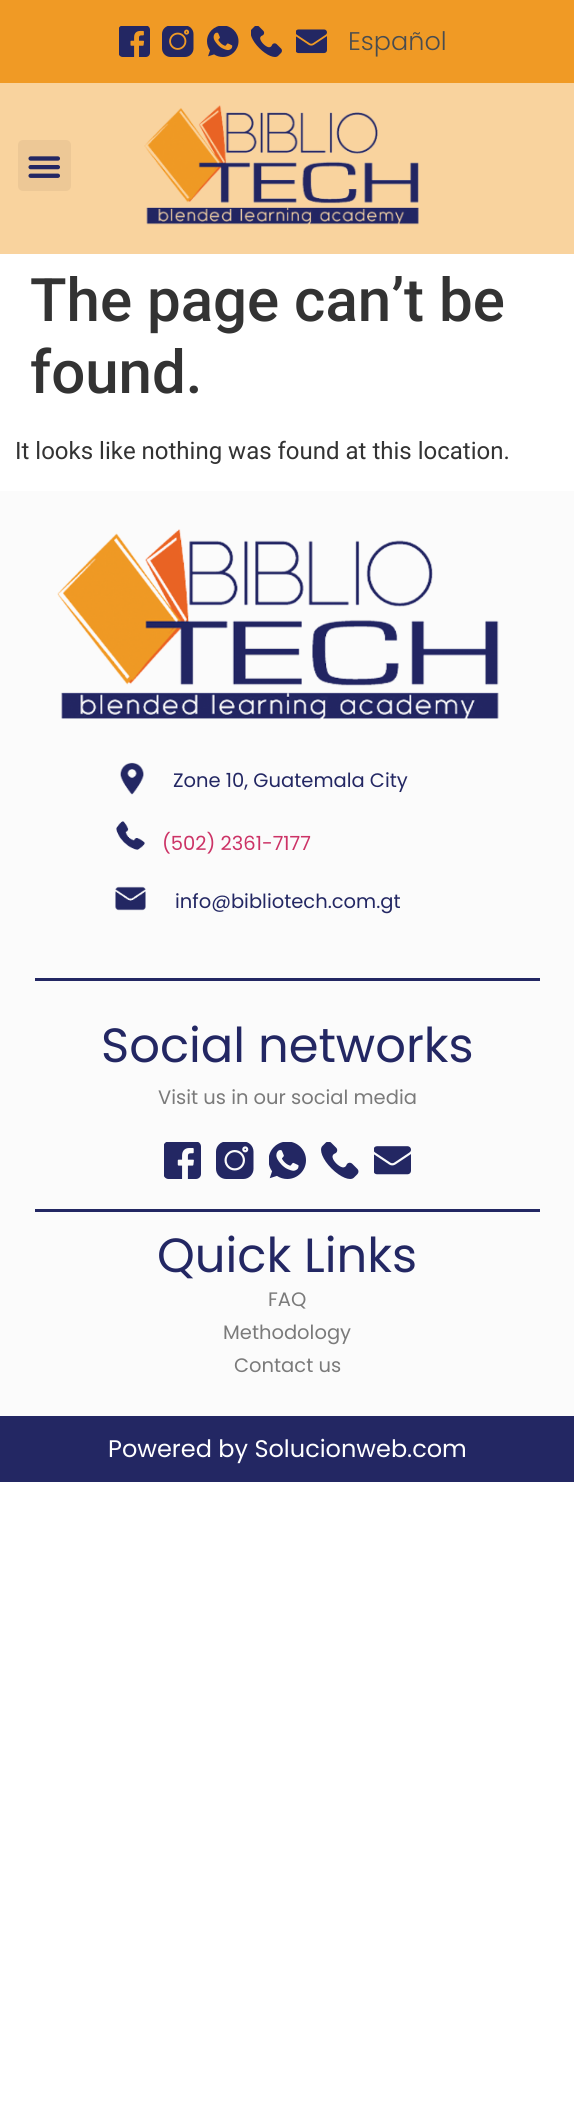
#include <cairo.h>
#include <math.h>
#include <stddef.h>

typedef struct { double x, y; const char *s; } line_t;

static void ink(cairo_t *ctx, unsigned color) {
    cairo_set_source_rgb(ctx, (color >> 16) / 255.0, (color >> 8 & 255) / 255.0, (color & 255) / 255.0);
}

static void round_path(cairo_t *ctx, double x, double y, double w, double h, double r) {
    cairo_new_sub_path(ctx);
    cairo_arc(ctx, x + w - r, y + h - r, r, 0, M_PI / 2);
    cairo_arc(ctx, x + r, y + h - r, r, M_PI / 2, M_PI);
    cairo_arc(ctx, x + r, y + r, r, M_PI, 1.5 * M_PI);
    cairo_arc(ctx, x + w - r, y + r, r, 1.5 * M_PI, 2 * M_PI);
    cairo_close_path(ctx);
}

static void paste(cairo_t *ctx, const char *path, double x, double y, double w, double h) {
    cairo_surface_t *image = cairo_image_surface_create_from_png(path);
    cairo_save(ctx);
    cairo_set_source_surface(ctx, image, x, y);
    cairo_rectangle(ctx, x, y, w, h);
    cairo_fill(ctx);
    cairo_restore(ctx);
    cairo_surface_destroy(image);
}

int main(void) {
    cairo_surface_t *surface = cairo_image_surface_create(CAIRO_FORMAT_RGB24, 574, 2103);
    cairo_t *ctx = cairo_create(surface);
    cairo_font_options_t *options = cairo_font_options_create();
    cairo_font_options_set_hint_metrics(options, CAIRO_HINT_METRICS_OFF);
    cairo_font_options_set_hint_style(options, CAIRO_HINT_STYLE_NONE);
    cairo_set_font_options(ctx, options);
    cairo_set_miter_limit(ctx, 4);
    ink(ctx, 0xFFFFFF);
    cairo_paint(ctx);
    ink(ctx, 0xF09A25);
    cairo_rectangle(ctx, 0, 0, 574, 83);
    cairo_fill(ctx);
    paste(ctx, "media/1.png", 119, 26, 31, 31);
    paste(ctx, "media/2.png", 162, 26, 32, 31);
    paste(ctx, "media/3.png", 207, 26, 32, 31);
    paste(ctx, "media/4.png", 251, 26, 31, 31);
    paste(ctx, "media/5.png", 296, 29, 31, 25);
    cairo_select_font_face(ctx, "Poppins Light", CAIRO_FONT_SLANT_NORMAL, CAIRO_FONT_WEIGHT_NORMAL);
    cairo_set_font_size(ctx, 25.5);
    ink(ctx, 0x494C4F);
    cairo_move_to(ctx, 348, 50);
    cairo_show_text(ctx, "Español");
    ink(ctx, 0xF9D39E);
    cairo_rectangle(ctx, 0, 83, 574, 171);
    cairo_fill(ctx);
    ink(ctx, 0xEDC896);
    round_path(ctx, 18, 140, 53, 51, 5);
    cairo_fill(ctx);
    paste(ctx, "media/6.png", 28, 156, 32, 22);
    paste(ctx, "media/7.png", 144, 105, 275, 120);
    cairo_select_font_face(ctx, "Roboto Medium", CAIRO_FONT_SLANT_NORMAL, CAIRO_FONT_WEIGHT_NORMAL);
    cairo_set_font_size(ctx, 60);
    ink(ctx, 0x333333);
    cairo_move_to(ctx, 30, 321);
    cairo_show_text(ctx, "The page can’t be");
    cairo_move_to(ctx, 30, 393);
    cairo_show_text(ctx, "found.");
    cairo_select_font_face(ctx, "Roboto", CAIRO_FONT_SLANT_NORMAL, CAIRO_FONT_WEIGHT_NORMAL);
    cairo_set_font_size(ctx, 24);
    cairo_move_to(ctx, 15, 459);
    cairo_show_text(ctx, "It looks like nothing was found at this location.");
    ink(ctx, 0xFBFBFB);
    cairo_rectangle(ctx, 0, 491, 574, 925);
    cairo_fill(ctx);
    ink(ctx, 0x232763);
    cairo_rectangle(ctx, 35, 978, 505, 3);
    cairo_fill(ctx);
    paste(ctx, "media/8.png", 57, 529, 442, 190);
    paste(ctx, "media/9.png", 120, 762, 24, 33);
    cairo_select_font_face(ctx, "Poppins", CAIRO_FONT_SLANT_NORMAL, CAIRO_FONT_WEIGHT_NORMAL);
    cairo_set_font_size(ctx, 19.5);
    cairo_move_to(ctx, 173, 787);
    cairo_show_text(ctx, "Zone 10, Guatemala City");
    paste(ctx, "media/10.png", 116, 821, 29, 29);
    ink(ctx, 0xCC3366);
    cairo_move_to(ctx, 162, 850);
    cairo_show_text(ctx, "(502) 2361-7177");
    paste(ctx, "media/11.png", 115, 886, 31, 25);
    ink(ctx, 0x232763);
    cairo_move_to(ctx, 175, 908);
    cairo_show_text(ctx, "info@bibliotech.com.gt");
    cairo_rectangle(ctx, 35, 1209, 505, 3);
    cairo_fill(ctx);
    cairo_set_font_size(ctx, 48);
    cairo_move_to(ctx, 101, 1062);
    cairo_show_text(ctx, "Social networks");
    cairo_set_font_size(ctx, 19.5);
    ink(ctx, 0x7A7A7A);
    cairo_move_to(ctx, 158, 1104);
    cairo_show_text(ctx, "Visit us in our social media");
    paste(ctx, "media/12.png", 164, 1142, 37, 37);
    paste(ctx, "media/13.png", 216, 1142, 38, 37);
    paste(ctx, "media/14.png", 269, 1142, 37, 37);
    paste(ctx, "media/15.png", 321, 1142, 38, 37);
    paste(ctx, "media/16.png", 374, 1146, 37, 29);
    cairo_set_font_size(ctx, 48);
    ink(ctx, 0x232763);
    cairo_move_to(ctx, 157, 1272);
    cairo_show_text(ctx, "Quick Links");
    cairo_set_font_size(ctx, 19.5);
    ink(ctx, 0x7A7A7A);
    {
        static const line_t items[] = {
            {268, 1306, "FAQ"},
            {223, 1339, "Methodology"},
            {234, 1372, "Contact us"},
        };
        for (size_t i = 0; i < sizeof items / sizeof *items; i++) {
            cairo_move_to(ctx, items[i].x, items[i].y);
            cairo_show_text(ctx, items[i].s);
        }
    }
    ink(ctx, 0x232763);
    cairo_rectangle(ctx, 0, 1416, 574, 66);
    cairo_fill(ctx);
    cairo_set_font_size(ctx, 24);
    ink(ctx, 0xFFFFFF);
    cairo_move_to(ctx, 108, 1457);
    cairo_show_text(ctx, "Powered by Solucionweb.com");
    cairo_surface_write_to_png(surface, "image.png");
    cairo_font_options_destroy(options);
    cairo_destroy(ctx);
    cairo_surface_destroy(surface);
    return 0;
}
